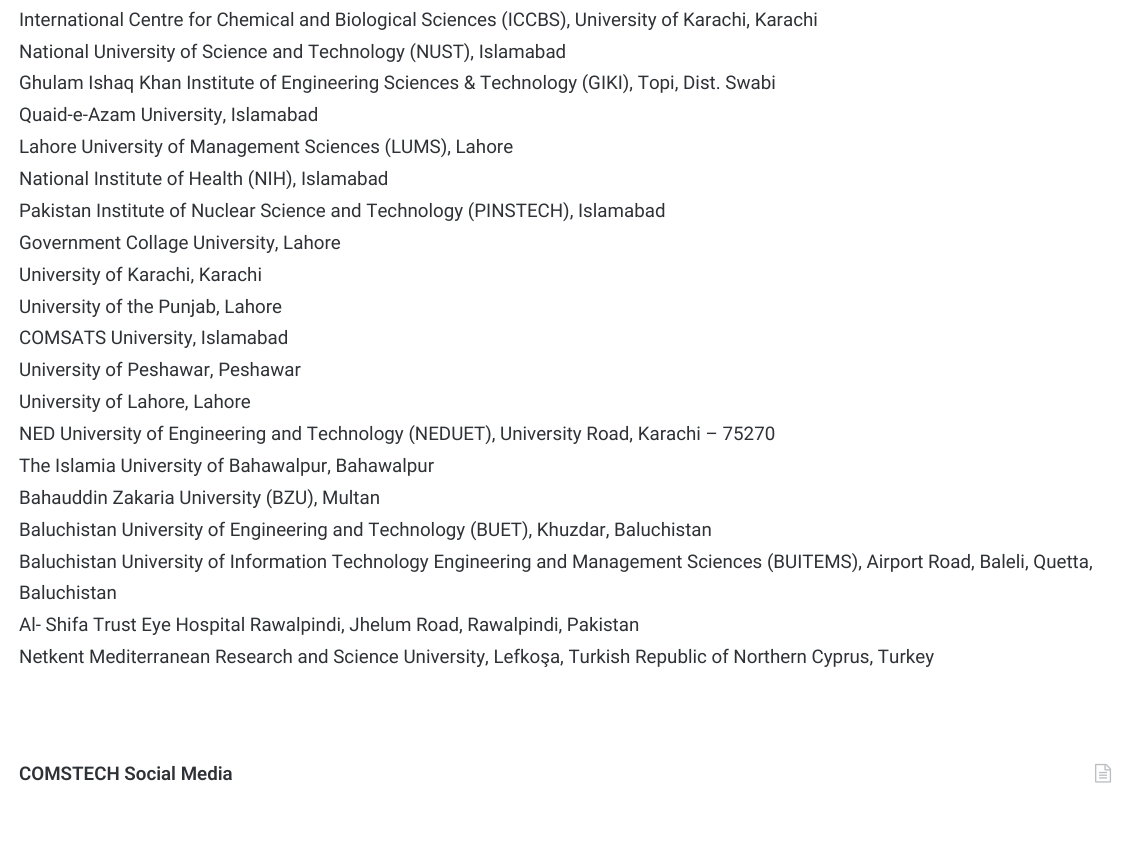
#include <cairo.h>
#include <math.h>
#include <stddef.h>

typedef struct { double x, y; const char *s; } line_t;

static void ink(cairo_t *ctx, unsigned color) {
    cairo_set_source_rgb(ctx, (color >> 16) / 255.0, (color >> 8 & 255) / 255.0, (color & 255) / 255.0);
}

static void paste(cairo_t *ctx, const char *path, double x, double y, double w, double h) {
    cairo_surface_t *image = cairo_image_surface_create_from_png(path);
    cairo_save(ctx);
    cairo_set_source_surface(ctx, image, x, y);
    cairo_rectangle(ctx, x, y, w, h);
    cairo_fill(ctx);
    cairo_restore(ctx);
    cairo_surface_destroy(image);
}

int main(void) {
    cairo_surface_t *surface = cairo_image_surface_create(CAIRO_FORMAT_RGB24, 1130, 852);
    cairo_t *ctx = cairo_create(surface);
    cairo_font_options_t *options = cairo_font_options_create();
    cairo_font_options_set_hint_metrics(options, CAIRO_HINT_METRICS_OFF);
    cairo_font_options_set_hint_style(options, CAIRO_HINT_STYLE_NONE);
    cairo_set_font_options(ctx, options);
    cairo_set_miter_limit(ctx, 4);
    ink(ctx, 0xFFFFFF);
    cairo_paint(ctx);
    cairo_select_font_face(ctx, "Roboto", CAIRO_FONT_SLANT_NORMAL, CAIRO_FONT_WEIGHT_NORMAL);
    cairo_set_font_size(ctx, 18.75);
    ink(ctx, 0x2E3136);
    {
        static const line_t items[] = {
            {19, 26, "International Centre for Chemical and Biological Sciences (ICCBS), University of Karachi, Karachi"},
            {19, 58, "National University of Science and Technology (NUST), Islamabad"},
            {19, 89, "Ghulam Ishaq Khan Institute of Engineering Sciences & Technology (GIKI), Topi, Dist. Swabi"},
            {19, 121, "Quaid-e-Azam University, Islamabad"},
            {19, 153, "Lahore University of Management Sciences (LUMS), Lahore"},
            {19, 185, "National Institute of Health (NIH), Islamabad"},
            {19, 217, "Pakistan Institute of Nuclear Science and Technology (PINSTECH), Islamabad"},
            {19, 249, "Government Collage University, Lahore"},
            {19, 281, "University of Karachi, Karachi"},
            {19, 313, "University of the Punjab, Lahore"},
            {19, 344, "COMSATS University, Islamabad"},
            {19, 376, "University of Peshawar, Peshawar"},
            {19, 408, "University of Lahore, Lahore"},
            {19, 440, "NED University of Engineering and Technology (NEDUET), University Road, Karachi – 75270"},
            {19, 472, "The Islamia University of Bahawalpur, Bahawalpur"},
            {19, 504, "Bahauddin Zakaria University (BZU), Multan"},
            {19, 536, "Baluchistan University of Engineering and Technology (BUET), Khuzdar, Baluchistan"},
            {19, 568, "Baluchistan University of Information Technology Engineering and Management Sciences (BUITEMS), Airport Road, Baleli, Quetta,"},
            {19, 599, "Baluchistan"},
            {19, 631, "Al- Shifa Trust Eye Hospital Rawalpindi, Jhelum Road, Rawalpindi, Pakistan"},
            {19, 663, "Netkent Mediterranean Research and Science University, Lefkoşa, Turkish Republic of Northern Cyprus, Turkey"},
        };
        for (size_t i = 0; i < sizeof items / sizeof *items; i++) {
            cairo_move_to(ctx, items[i].x, items[i].y);
            cairo_show_text(ctx, items[i].s);
        }
    }
    cairo_select_font_face(ctx, "Roboto SemiBold", CAIRO_FONT_SLANT_NORMAL, CAIRO_FONT_WEIGHT_NORMAL);
    cairo_move_to(ctx, 19, 780);
    cairo_show_text(ctx, "COMSTECH Social Media");
    paste(ctx, "media/1.png", 1095, 763, 17, 20);
    cairo_surface_write_to_png(surface, "image.png");
    cairo_font_options_destroy(options);
    cairo_destroy(ctx);
    cairo_surface_destroy(surface);
    return 0;
}
